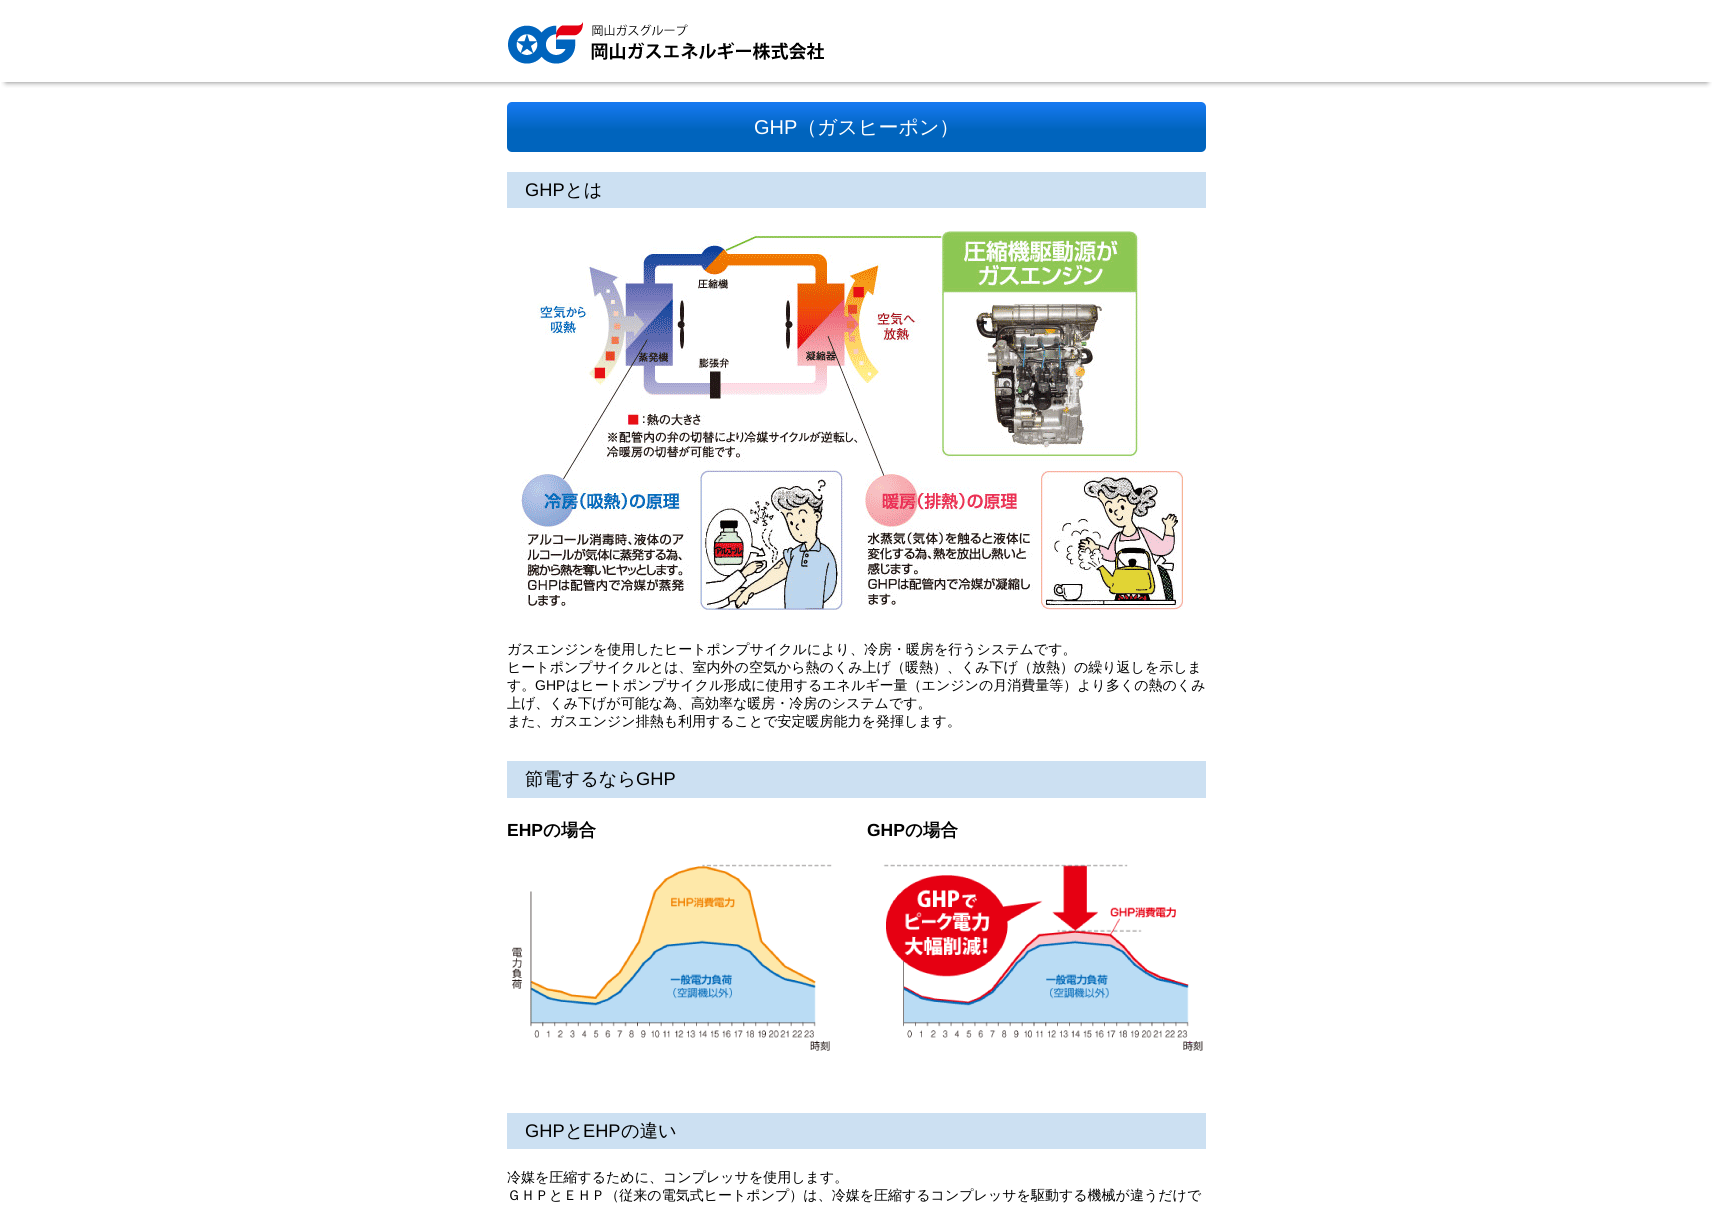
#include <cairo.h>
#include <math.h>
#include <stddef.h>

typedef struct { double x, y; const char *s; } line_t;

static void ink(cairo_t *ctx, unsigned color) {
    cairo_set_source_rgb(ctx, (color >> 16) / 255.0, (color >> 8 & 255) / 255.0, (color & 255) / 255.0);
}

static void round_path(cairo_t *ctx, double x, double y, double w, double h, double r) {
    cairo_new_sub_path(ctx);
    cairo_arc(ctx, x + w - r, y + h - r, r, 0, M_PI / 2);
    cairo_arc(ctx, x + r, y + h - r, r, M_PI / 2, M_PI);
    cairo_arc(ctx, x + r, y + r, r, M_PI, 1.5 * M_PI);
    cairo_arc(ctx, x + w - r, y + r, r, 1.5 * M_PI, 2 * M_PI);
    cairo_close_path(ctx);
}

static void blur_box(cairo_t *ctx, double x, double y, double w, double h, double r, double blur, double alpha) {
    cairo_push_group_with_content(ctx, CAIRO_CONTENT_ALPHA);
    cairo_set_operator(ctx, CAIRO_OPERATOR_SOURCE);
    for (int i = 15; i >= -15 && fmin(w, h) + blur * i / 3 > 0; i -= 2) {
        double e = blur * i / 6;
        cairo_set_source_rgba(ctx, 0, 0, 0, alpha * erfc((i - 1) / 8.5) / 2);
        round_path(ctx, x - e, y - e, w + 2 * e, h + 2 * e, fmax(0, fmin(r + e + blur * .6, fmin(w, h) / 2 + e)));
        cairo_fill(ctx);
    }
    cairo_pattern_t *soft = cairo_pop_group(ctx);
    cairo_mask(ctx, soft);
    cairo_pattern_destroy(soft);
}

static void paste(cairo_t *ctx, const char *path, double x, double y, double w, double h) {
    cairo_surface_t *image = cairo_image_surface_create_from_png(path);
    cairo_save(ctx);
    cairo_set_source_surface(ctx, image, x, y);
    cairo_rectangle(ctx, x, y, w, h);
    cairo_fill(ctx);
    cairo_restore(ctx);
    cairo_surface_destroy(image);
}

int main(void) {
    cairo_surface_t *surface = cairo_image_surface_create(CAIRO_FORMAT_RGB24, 1713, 1214);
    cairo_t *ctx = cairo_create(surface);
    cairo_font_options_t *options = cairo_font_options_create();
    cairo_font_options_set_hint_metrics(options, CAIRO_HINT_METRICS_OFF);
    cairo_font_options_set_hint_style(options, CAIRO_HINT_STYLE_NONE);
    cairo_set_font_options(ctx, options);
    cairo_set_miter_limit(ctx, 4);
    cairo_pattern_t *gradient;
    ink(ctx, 0xFFFFFF);
    cairo_paint(ctx);
    cairo_save(ctx);
    cairo_rectangle(ctx, 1, 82, 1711, 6);
    cairo_clip(ctx);
    ink(ctx, 0x777777);
    blur_box(ctx, 6, 12, 1701, 70, 0, 3, 1);
    cairo_restore(ctx);
    paste(ctx, "media/1.png", 508, 22, 316, 42);
    gradient = cairo_pattern_create_linear(857, 102, 857, 152);
    cairo_pattern_add_color_stop_rgba(gradient, 0.05, 0.082, 0.471, 0.937, 1);
    cairo_pattern_add_color_stop_rgba(gradient, 0.56, 0, 0.392, 0.741, 1);
    cairo_set_source(ctx, gradient);
    cairo_pattern_destroy(gradient);
    round_path(ctx, 507, 102, 699, 50, 5);
    cairo_fill(ctx);
    cairo_select_font_face(ctx, "Liberation Sans", CAIRO_FONT_SLANT_NORMAL, CAIRO_FONT_WEIGHT_NORMAL);
    cairo_set_font_size(ctx, 20);
    ink(ctx, 0xFFFFFF);
    cairo_move_to(ctx, 754, 134);
    cairo_show_text(ctx, "GHP");
    cairo_select_font_face(ctx, "WenQuanYi Zen Hei Medium", CAIRO_FONT_SLANT_NORMAL, CAIRO_FONT_WEIGHT_NORMAL);
    cairo_move_to(ctx, 797, 134);
    cairo_show_text(ctx, "（ガスヒーポン）");
    ink(ctx, 0xCCE0F2);
    cairo_rectangle(ctx, 507, 172, 699, 36);
    cairo_fill(ctx);
    cairo_select_font_face(ctx, "Liberation Sans", CAIRO_FONT_SLANT_NORMAL, CAIRO_FONT_WEIGHT_NORMAL);
    cairo_set_font_size(ctx, 18.25);
    ink(ctx, 0x000000);
    cairo_move_to(ctx, 525, 196);
    cairo_show_text(ctx, "GHP");
    cairo_select_font_face(ctx, "WenQuanYi Zen Hei Medium", CAIRO_FONT_SLANT_NORMAL, CAIRO_FONT_WEIGHT_NORMAL);
    cairo_move_to(ctx, 565, 196);
    cairo_show_text(ctx, "とは");
    paste(ctx, "media/2.png", 521, 231, 662, 379);
    cairo_set_font_size(ctx, 14);
    {
        static const line_t items[] = {
            {507, 654, "ガスエンジンを使用したヒートポンプサイクルにより、冷房・暖房を行うシステムです。"},
            {507, 672, "ヒートポンプサイクルとは、室内外の空気から熱のくみ上げ（暖熱）、くみ下げ（放熱）の繰り返しを示しま"},
            {507, 690, "す。"},
        };
        for (size_t i = 0; i < sizeof items / sizeof *items; i++) {
            cairo_move_to(ctx, items[i].x, items[i].y);
            cairo_show_text(ctx, items[i].s);
        }
    }
    cairo_select_font_face(ctx, "Liberation Sans", CAIRO_FONT_SLANT_NORMAL, CAIRO_FONT_WEIGHT_NORMAL);
    cairo_move_to(ctx, 535, 690);
    cairo_show_text(ctx, "GHP");
    cairo_select_font_face(ctx, "WenQuanYi Zen Hei Medium", CAIRO_FONT_SLANT_NORMAL, CAIRO_FONT_WEIGHT_NORMAL);
    {
        static const line_t items[] = {
            {566, 690, "はヒートポンプサイクル形成に使用するエネルギー量（エンジンの月消費量等）より多くの熱のくみ"},
            {507, 708, "上げ、くみ下げが可能な為、高効率な暖房・冷房のシステムです。"},
            {507, 726, "また、ガスエンジン排熱も利用することで安定暖房能力を発揮します。"},
        };
        for (size_t i = 0; i < sizeof items / sizeof *items; i++) {
            cairo_move_to(ctx, items[i].x, items[i].y);
            cairo_show_text(ctx, items[i].s);
        }
    }
    ink(ctx, 0xCCE0F2);
    cairo_rectangle(ctx, 507, 761, 699, 37);
    cairo_fill(ctx);
    cairo_set_font_size(ctx, 18.25);
    ink(ctx, 0x000000);
    cairo_move_to(ctx, 525, 785);
    cairo_show_text(ctx, "節電するなら");
    cairo_select_font_face(ctx, "Liberation Sans", CAIRO_FONT_SLANT_NORMAL, CAIRO_FONT_WEIGHT_NORMAL);
    cairo_move_to(ctx, 636, 785);
    cairo_show_text(ctx, "GHP");
    cairo_select_font_face(ctx, "Liberation Sans", CAIRO_FONT_SLANT_NORMAL, CAIRO_FONT_WEIGHT_BOLD);
    cairo_set_font_size(ctx, 17.5);
    cairo_move_to(ctx, 507, 836);
    cairo_show_text(ctx, "EHP");
    cairo_select_font_face(ctx, "WenQuanYi Zen Hei", CAIRO_FONT_SLANT_NORMAL, CAIRO_FONT_WEIGHT_BOLD);
    cairo_move_to(ctx, 543, 836);
    cairo_show_text(ctx, "の場合");
    paste(ctx, "media/3.png", 512, 864, 320, 187);
    cairo_select_font_face(ctx, "Liberation Sans", CAIRO_FONT_SLANT_NORMAL, CAIRO_FONT_WEIGHT_BOLD);
    cairo_move_to(ctx, 867, 836);
    cairo_show_text(ctx, "GHP");
    cairo_select_font_face(ctx, "WenQuanYi Zen Hei", CAIRO_FONT_SLANT_NORMAL, CAIRO_FONT_WEIGHT_BOLD);
    cairo_move_to(ctx, 905, 836);
    cairo_show_text(ctx, "の場合");
    paste(ctx, "media/4.png", 883, 864, 320, 187);
    ink(ctx, 0xCCE0F2);
    cairo_rectangle(ctx, 507, 1113, 699, 36);
    cairo_fill(ctx);
    cairo_select_font_face(ctx, "Liberation Sans", CAIRO_FONT_SLANT_NORMAL, CAIRO_FONT_WEIGHT_NORMAL);
    cairo_set_font_size(ctx, 18.25);
    ink(ctx, 0x000000);
    cairo_move_to(ctx, 525, 1137);
    cairo_show_text(ctx, "GHP");
    cairo_select_font_face(ctx, "WenQuanYi Zen Hei Medium", CAIRO_FONT_SLANT_NORMAL, CAIRO_FONT_WEIGHT_NORMAL);
    cairo_move_to(ctx, 565, 1137);
    cairo_show_text(ctx, "と");
    cairo_select_font_face(ctx, "Liberation Sans", CAIRO_FONT_SLANT_NORMAL, CAIRO_FONT_WEIGHT_NORMAL);
    cairo_move_to(ctx, 583, 1137);
    cairo_show_text(ctx, "EHP");
    cairo_select_font_face(ctx, "WenQuanYi Zen Hei Medium", CAIRO_FONT_SLANT_NORMAL, CAIRO_FONT_WEIGHT_NORMAL);
    cairo_move_to(ctx, 621, 1137);
    cairo_show_text(ctx, "の違い");
    cairo_set_font_size(ctx, 14);
    cairo_move_to(ctx, 507, 1182);
    cairo_show_text(ctx, "冷媒を圧縮するために、コンプレッサを使用します。");
    cairo_move_to(ctx, 507, 1200);
    cairo_show_text(ctx, "ＧＨＰとＥＨＰ（従来の電気式ヒートポンプ）は、冷媒を圧縮するコンプレッサを駆動する機械が違うだけで");
    cairo_surface_write_to_png(surface, "image.png");
    cairo_font_options_destroy(options);
    cairo_destroy(ctx);
    cairo_surface_destroy(surface);
    return 0;
}
